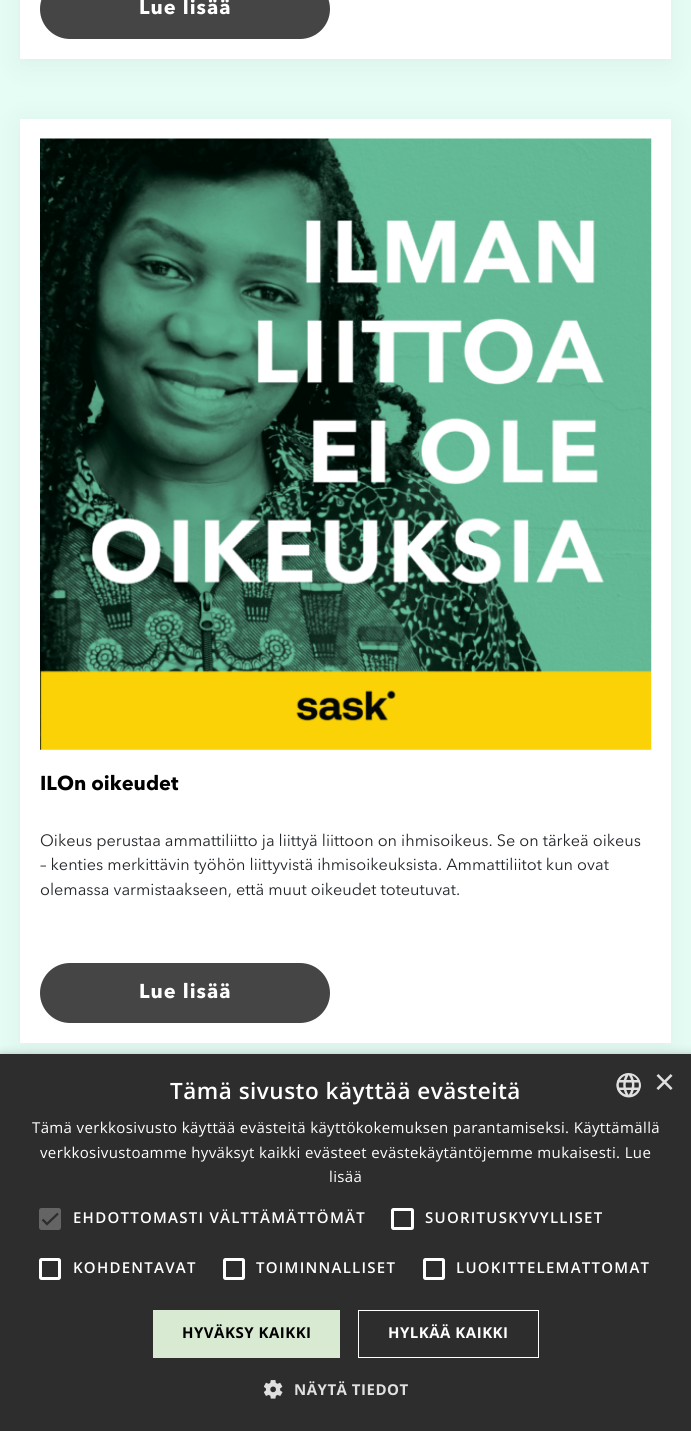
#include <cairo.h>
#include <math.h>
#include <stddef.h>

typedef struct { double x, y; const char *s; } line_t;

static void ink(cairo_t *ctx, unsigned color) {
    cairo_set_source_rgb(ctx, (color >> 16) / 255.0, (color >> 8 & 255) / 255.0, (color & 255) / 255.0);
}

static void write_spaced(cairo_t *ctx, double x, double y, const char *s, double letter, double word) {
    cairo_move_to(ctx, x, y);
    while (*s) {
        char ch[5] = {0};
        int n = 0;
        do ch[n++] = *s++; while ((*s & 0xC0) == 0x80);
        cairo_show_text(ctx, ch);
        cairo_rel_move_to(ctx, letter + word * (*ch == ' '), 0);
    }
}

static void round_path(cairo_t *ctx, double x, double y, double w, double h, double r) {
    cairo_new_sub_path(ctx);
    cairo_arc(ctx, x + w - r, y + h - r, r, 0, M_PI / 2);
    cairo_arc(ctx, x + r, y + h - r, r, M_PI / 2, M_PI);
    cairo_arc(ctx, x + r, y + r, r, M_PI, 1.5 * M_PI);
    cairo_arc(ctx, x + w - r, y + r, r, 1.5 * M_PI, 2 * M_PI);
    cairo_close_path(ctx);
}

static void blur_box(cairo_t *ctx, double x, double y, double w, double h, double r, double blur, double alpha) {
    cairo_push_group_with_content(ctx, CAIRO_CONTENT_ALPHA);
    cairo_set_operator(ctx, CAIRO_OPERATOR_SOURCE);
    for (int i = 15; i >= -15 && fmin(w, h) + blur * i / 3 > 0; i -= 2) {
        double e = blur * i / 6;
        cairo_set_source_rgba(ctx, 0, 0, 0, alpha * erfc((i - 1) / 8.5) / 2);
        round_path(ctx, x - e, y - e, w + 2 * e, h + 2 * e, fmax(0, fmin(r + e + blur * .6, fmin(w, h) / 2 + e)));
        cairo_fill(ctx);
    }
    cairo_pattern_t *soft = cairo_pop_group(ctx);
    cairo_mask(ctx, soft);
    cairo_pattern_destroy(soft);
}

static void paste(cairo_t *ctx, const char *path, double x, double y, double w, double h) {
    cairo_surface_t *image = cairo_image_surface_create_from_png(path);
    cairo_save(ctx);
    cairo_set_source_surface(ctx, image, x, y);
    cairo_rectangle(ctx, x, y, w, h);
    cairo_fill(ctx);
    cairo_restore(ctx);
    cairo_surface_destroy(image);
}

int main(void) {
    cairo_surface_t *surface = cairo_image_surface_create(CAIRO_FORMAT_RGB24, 691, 1431);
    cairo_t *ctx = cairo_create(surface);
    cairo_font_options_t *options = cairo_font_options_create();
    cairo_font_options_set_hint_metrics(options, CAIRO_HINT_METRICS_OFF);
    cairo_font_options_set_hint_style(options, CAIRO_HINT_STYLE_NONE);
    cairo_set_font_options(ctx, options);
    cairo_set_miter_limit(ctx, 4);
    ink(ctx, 0xE5FDF5);
    cairo_paint(ctx);
    ink(ctx, 0x000000);
    blur_box(ctx, 20, -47, 651, 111, 0, 15.5, 0.05);
    ink(ctx, 0xFFFFFF);
    cairo_rectangle(ctx, 20, 0, 651, 59);
    cairo_fill(ctx);
    ink(ctx, 0x454545);
    round_path(ctx, 40, -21, 290, 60, 30);
    cairo_fill(ctx);
    cairo_select_font_face(ctx, "Avenir Next", CAIRO_FONT_SLANT_NORMAL, CAIRO_FONT_WEIGHT_BOLD);
    cairo_set_font_size(ctx, 20);
    ink(ctx, 0xFFFFFF);
    write_spaced(ctx, 139, 14, "Lue lisää", 1, 0);
    ink(ctx, 0x000000);
    blur_box(ctx, 20, 124, 651, 924, 0, 15.5, 0.05);
    ink(ctx, 0xFFFFFF);
    cairo_rectangle(ctx, 20, 119, 651, 924);
    cairo_fill(ctx);
    paste(ctx, "media/1.png", 40, 138, 612, 612);
    ink(ctx, 0x000000);
    cairo_move_to(ctx, 40, 790);
    cairo_show_text(ctx, "ILOn oikeudet");
    cairo_select_font_face(ctx, "Avenir Next", CAIRO_FONT_SLANT_NORMAL, CAIRO_FONT_WEIGHT_NORMAL);
    cairo_set_font_size(ctx, 16.25);
    ink(ctx, 0x212529);
    {
        static const line_t items[] = {
            {40, 846, "Oikeus perustaa ammattiliitto ja liittyä liittoon on ihmisoikeus. Se on tärkeä oikeus"},
            {40, 870, "– kenties merkittävin työhön liittyvistä ihmisoikeuksista. Ammattiliitot kun ovat"},
            {40, 895, "olemassa varmistaakseen, että muut oikeudet toteutuvat."},
        };
        for (size_t i = 0; i < sizeof items / sizeof *items; i++) {
            cairo_move_to(ctx, items[i].x, items[i].y);
            cairo_show_text(ctx, items[i].s);
        }
    }
    ink(ctx, 0x454545);
    round_path(ctx, 40, 963, 290, 60, 30);
    cairo_fill(ctx);
    cairo_select_font_face(ctx, "Avenir Next", CAIRO_FONT_SLANT_NORMAL, CAIRO_FONT_WEIGHT_BOLD);
    cairo_set_font_size(ctx, 20);
    ink(ctx, 0xFFFFFF);
    write_spaced(ctx, 139, 998, "Lue lisää", 1, 0);
    ink(ctx, 0x000000);
    blur_box(ctx, 1, 1056, 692, 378, 0, 5, 0.35);
    ink(ctx, 0x2D2D2D);
    cairo_rectangle(ctx, 0, 1054, 691, 377);
    cairo_fill(ctx);
    cairo_select_font_face(ctx, "Open Sans SemiBold", CAIRO_FONT_SLANT_NORMAL, CAIRO_FONT_WEIGHT_NORMAL);
    cairo_set_font_size(ctx, 22.5);
    ink(ctx, 0xFFFFFF);
    write_spaced(ctx, 170, 1099, "Tämä sivusto käyttää evästeitä", 0.5, 0);
    paste(ctx, "media/2.png", 616, 1073, 25, 25);
    cairo_select_font_face(ctx, "Liberation Sans", CAIRO_FONT_SLANT_NORMAL, CAIRO_FONT_WEIGHT_NORMAL);
    cairo_set_font_size(ctx, 36);
    ink(ctx, 0xE0E0E0);
    cairo_move_to(ctx, 654, 1094);
    cairo_show_text(ctx, "×");
    cairo_select_font_face(ctx, "Open Sans", CAIRO_FONT_SLANT_NORMAL, CAIRO_FONT_WEIGHT_NORMAL);
    cairo_set_font_size(ctx, 15);
    ink(ctx, 0xFFFFFF);
    {
        static const line_t items[] = {
            {32, 1133, "Tämä verkkosivusto käyttää evästeitä käyttökokemuksen parantamiseksi. Käyttämällä"},
            {40, 1158, "verkkosivustoamme hyväksyt kaikki evästeet evästekäytäntöjemme mukaisesti. Lue"},
            {329, 1182, "lisää"},
        };
        for (size_t i = 0; i < sizeof items / sizeof *items; i++) {
            write_spaced(ctx, items[i].x, items[i].y, items[i].s, 0.38, 0);
        }
    }
    ink(ctx, 0x646464);
    round_path(ctx, 39, 1208, 22, 22, 2.5);
    cairo_fill(ctx);
    cairo_new_path(ctx);
    cairo_move_to(ctx, 42.5, 1219.5);
    cairo_line_to(ctx, 47, 1224);
    cairo_line_to(ctx, 58, 1213.5);
    ink(ctx, 0x2D2D2D);
    cairo_set_line_width(ctx, 2.3);
    cairo_stroke(ctx);
    cairo_select_font_face(ctx, "Open Sans SemiBold", CAIRO_FONT_SLANT_NORMAL, CAIRO_FONT_WEIGHT_NORMAL);
    ink(ctx, 0xFFFFFF);
    write_spaced(ctx, 73, 1223, "EHDOTTOMASTI VÄLTTÄMÄTTÖMÄT", 1.25, 0);
    round_path(ctx, 392.5, 1209.5, 20, 19, 1);
    cairo_set_line_width(ctx, 3);
    cairo_stroke(ctx);
    write_spaced(ctx, 425, 1223, "SUORITUSKYVYLLISET", 1.25, 0);
    round_path(ctx, 40.5, 1259.5, 19, 19, 1);
    cairo_stroke(ctx);
    write_spaced(ctx, 73, 1273, "KOHDENTAVAT", 1.25, 0);
    round_path(ctx, 224.5, 1259.5, 19, 19, 1);
    cairo_stroke(ctx);
    write_spaced(ctx, 256, 1273, "TOIMINNALLISET", 1.25, 0);
    round_path(ctx, 424.5, 1259.5, 19, 19, 1);
    cairo_stroke(ctx);
    write_spaced(ctx, 456, 1273, "LUOKITTELEMATTOMAT", 1.25, 0);
    ink(ctx, 0xD9EAD3);
    cairo_rectangle(ctx, 153, 1310, 187, 48);
    cairo_fill(ctx);
    cairo_select_font_face(ctx, "Open Sans", CAIRO_FONT_SLANT_NORMAL, CAIRO_FONT_WEIGHT_BOLD);
    ink(ctx, 0x000000);
    write_spaced(ctx, 182, 1338, "HYVÄKSY KAIKKI", 0.5, 0);
    cairo_rectangle(ctx, 358.5, 1310.5, 180, 47);
    ink(ctx, 0xFFFFFF);
    cairo_set_line_width(ctx, 1);
    cairo_stroke(ctx);
    write_spaced(ctx, 388, 1338, "HYLKÄÄ KAIKKI", 0.5, 0);
    paste(ctx, "media/3.png", 264, 1380, 19, 19);
    ink(ctx, 0xE0E0E0);
    write_spaced(ctx, 294, 1395, "NÄYTÄ TIEDOT", 0.5, 0);
    cairo_surface_write_to_png(surface, "image.png");
    cairo_font_options_destroy(options);
    cairo_destroy(ctx);
    cairo_surface_destroy(surface);
    return 0;
}
